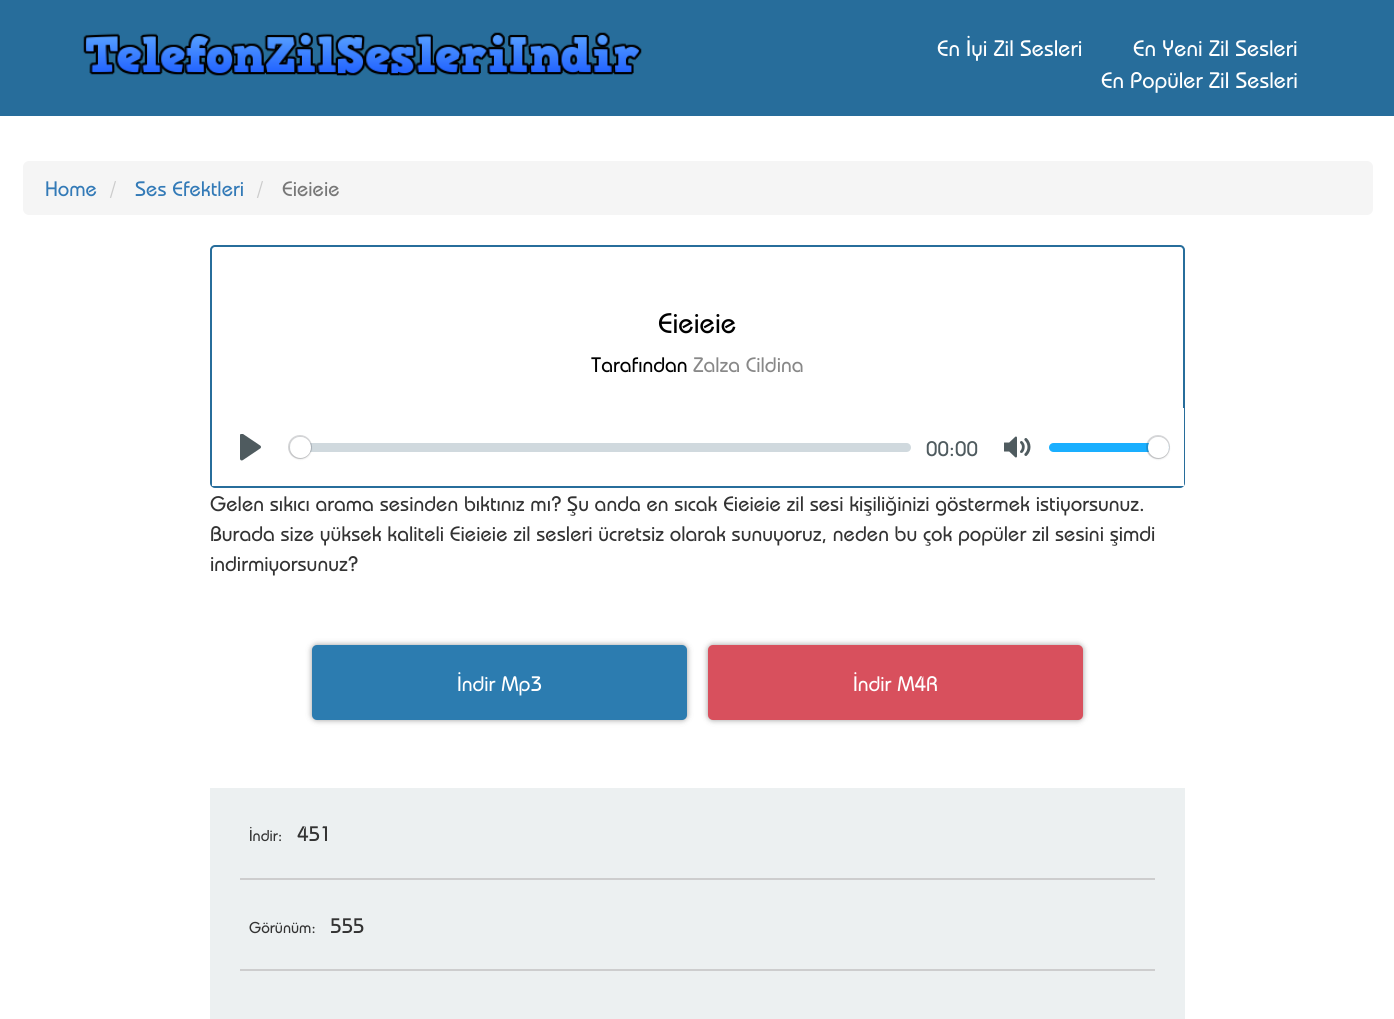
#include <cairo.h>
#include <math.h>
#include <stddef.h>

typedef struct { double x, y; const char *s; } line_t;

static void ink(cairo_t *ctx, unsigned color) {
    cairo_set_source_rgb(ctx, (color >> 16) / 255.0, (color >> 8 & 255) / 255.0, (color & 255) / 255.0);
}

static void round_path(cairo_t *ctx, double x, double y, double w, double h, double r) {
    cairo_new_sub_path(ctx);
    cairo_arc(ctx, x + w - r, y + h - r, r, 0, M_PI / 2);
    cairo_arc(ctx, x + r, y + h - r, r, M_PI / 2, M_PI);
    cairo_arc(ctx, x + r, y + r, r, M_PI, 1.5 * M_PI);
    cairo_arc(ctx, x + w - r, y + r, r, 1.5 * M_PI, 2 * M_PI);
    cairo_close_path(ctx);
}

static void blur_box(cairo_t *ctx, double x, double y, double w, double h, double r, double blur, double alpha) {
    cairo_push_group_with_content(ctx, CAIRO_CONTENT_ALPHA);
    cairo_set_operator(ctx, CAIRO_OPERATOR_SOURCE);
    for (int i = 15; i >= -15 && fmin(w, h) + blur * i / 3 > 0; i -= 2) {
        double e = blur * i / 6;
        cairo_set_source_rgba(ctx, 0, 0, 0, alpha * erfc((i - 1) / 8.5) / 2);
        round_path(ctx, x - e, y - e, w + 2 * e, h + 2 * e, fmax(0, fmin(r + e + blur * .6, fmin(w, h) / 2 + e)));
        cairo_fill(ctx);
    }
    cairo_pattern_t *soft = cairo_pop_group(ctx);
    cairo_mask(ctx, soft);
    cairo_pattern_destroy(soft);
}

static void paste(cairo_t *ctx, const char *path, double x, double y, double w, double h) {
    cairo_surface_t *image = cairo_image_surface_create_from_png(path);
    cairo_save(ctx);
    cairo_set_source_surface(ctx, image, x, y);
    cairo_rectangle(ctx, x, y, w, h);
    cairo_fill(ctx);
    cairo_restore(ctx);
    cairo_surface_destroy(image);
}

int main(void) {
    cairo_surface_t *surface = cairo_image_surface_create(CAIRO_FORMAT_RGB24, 1394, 1019);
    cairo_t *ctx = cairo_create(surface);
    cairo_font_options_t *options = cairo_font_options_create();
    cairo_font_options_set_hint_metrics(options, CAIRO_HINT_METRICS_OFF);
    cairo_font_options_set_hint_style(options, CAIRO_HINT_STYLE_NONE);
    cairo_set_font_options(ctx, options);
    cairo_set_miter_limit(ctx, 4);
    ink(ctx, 0xFFFFFF);
    cairo_paint(ctx);
    ink(ctx, 0x276D9B);
    cairo_rectangle(ctx, 0, 0, 1394, 116);
    cairo_fill(ctx);
    paste(ctx, "media/1.png", 83, 32, 559, 44);
    cairo_select_font_face(ctx, "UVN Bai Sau", CAIRO_FONT_SLANT_NORMAL, CAIRO_FONT_WEIGHT_NORMAL);
    cairo_set_font_size(ctx, 22.5);
    ink(ctx, 0xFFFFFF);
    {
        static const line_t items[] = {
            {937, 56, "En İyi Zil Sesleri"},
            {1133, 56, "En Yeni Zil Sesleri"},
            {1101, 88, "En Popüler Zil Sesleri"},
        };
        for (size_t i = 0; i < sizeof items / sizeof *items; i++) {
            cairo_move_to(ctx, items[i].x, items[i].y);
            cairo_show_text(ctx, items[i].s);
        }
    }
    ink(ctx, 0xF5F5F5);
    round_path(ctx, 23, 161, 1350, 54, 6);
    cairo_fill(ctx);
    cairo_set_font_size(ctx, 21);
    ink(ctx, 0x337AB7);
    cairo_move_to(ctx, 45, 196);
    cairo_show_text(ctx, "Home");
    ink(ctx, 0xCCCCCC);
    cairo_move_to(ctx, 110, 196);
    cairo_show_text(ctx, "/");
    ink(ctx, 0x337AB7);
    cairo_move_to(ctx, 135, 196);
    cairo_show_text(ctx, "Ses Efektleri");
    ink(ctx, 0xCCCCCC);
    cairo_move_to(ctx, 257, 196);
    cairo_show_text(ctx, "/");
    ink(ctx, 0x777777);
    cairo_move_to(ctx, 282, 196);
    cairo_show_text(ctx, "Eieieie");
    round_path(ctx, 211, 246, 973, 241, 4);
    ink(ctx, 0x276D9B);
    cairo_stroke(ctx);
    cairo_set_font_size(ctx, 28.5);
    ink(ctx, 0x000000);
    cairo_move_to(ctx, 658, 333);
    cairo_show_text(ctx, "Eieieie");
    cairo_set_font_size(ctx, 21);
    cairo_move_to(ctx, 591, 372);
    cairo_show_text(ctx, "Tarafından");
    ink(ctx, 0x888888);
    cairo_move_to(ctx, 693, 372);
    cairo_show_text(ctx, "Zalza Cildina");
    ink(ctx, 0xFFFFFF);
    cairo_rectangle(ctx, 212, 408, 972, 78);
    cairo_fill(ctx);
    paste(ctx, "media/2.png", 240, 434, 21, 27);
    cairo_set_source_rgba(ctx, 0.718, 0.773, 0.804, 0.66);
    round_path(ctx, 290, 443, 621, 9, 4.5);
    cairo_fill(ctx);
    cairo_arc(ctx, 300, 447, 11, 0, 2 * M_PI);
    cairo_set_source_rgba(ctx, 0.184, 0.204, 0.239, 0.2);
    cairo_stroke(ctx);
    ink(ctx, 0x000000);
    blur_box(ctx, 290, 438, 21, 21, 10.5, 1, 0.15);
    ink(ctx, 0xFFFFFF);
    cairo_arc(ctx, 300.5, 447.5, 10.5, 0, 2 * M_PI);
    cairo_fill(ctx);
    ink(ctx, 0x4F5B5F);
    cairo_move_to(ctx, 926, 456);
    cairo_show_text(ctx, "00:00");
    paste(ctx, "media/3.png", 1004, 436, 27, 22);
    ink(ctx, 0x1AAFFF);
    round_path(ctx, 1049, 443, 120, 9, 4.5);
    cairo_fill(ctx);
    cairo_arc(ctx, 1158, 447, 11, 0, 2 * M_PI);
    cairo_set_source_rgba(ctx, 0.184, 0.204, 0.239, 0.2);
    cairo_stroke(ctx);
    ink(ctx, 0x000000);
    blur_box(ctx, 1148, 438, 21, 21, 10.5, 1, 0.15);
    ink(ctx, 0xFFFFFF);
    cairo_arc(ctx, 1158.5, 447.5, 10.5, 0, 2 * M_PI);
    cairo_fill(ctx);
    ink(ctx, 0x333333);
    {
        static const line_t items[] = {
            {210, 511, "Gelen sıkıcı arama sesinden bıktınız mı? Şu anda en sıcak Eieieie zil sesi kişiliğinizi göstermek istiyorsunuz."},
            {210, 541, "Burada size yüksek kaliteli Eieieie zil sesleri ücretsiz olarak sunuyoruz, neden bu çok popüler zil sesini şimdi"},
            {210, 571, "indirmiyorsunuz?"},
        };
        for (size_t i = 0; i < sizeof items / sizeof *items; i++) {
            cairo_move_to(ctx, items[i].x, items[i].y);
            cairo_show_text(ctx, items[i].s);
        }
    }
    ink(ctx, 0x000000);
    blur_box(ctx, 312, 645, 375, 75, 5, 3, 0.4);
    ink(ctx, 0x2C7CB0);
    round_path(ctx, 312, 645, 375, 75, 5);
    cairo_fill(ctx);
    ink(ctx, 0xFFFFFF);
    cairo_move_to(ctx, 457, 691);
    cairo_show_text(ctx, "İndir Mp3");
    ink(ctx, 0x000000);
    blur_box(ctx, 708, 645, 375, 75, 5, 3, 0.4);
    ink(ctx, 0xD8505D);
    round_path(ctx, 708, 645, 375, 75, 5);
    cairo_fill(ctx);
    ink(ctx, 0xFFFFFF);
    cairo_move_to(ctx, 853, 691);
    cairo_show_text(ctx, "İndir M4R");
    ink(ctx, 0xECF0F1);
    cairo_rectangle(ctx, 210, 788, 975, 231);
    cairo_fill(ctx);
    ink(ctx, 0xCDCDCE);
    cairo_rectangle(ctx, 240, 878, 915, 2);
    cairo_fill(ctx);
    cairo_set_font_size(ctx, 15.75);
    ink(ctx, 0x333333);
    cairo_move_to(ctx, 249, 841);
    cairo_show_text(ctx, "İndir:");
    cairo_set_font_size(ctx, 21);
    cairo_move_to(ctx, 297, 841);
    cairo_show_text(ctx, "451");
    ink(ctx, 0xCDCDCE);
    cairo_rectangle(ctx, 240, 969, 915, 2);
    cairo_fill(ctx);
    cairo_set_font_size(ctx, 15.75);
    ink(ctx, 0x333333);
    cairo_move_to(ctx, 249, 933);
    cairo_show_text(ctx, "Görünüm:");
    cairo_set_font_size(ctx, 21);
    cairo_move_to(ctx, 330, 933);
    cairo_show_text(ctx, "555");
    cairo_surface_write_to_png(surface, "image.png");
    cairo_font_options_destroy(options);
    cairo_destroy(ctx);
    cairo_surface_destroy(surface);
    return 0;
}
